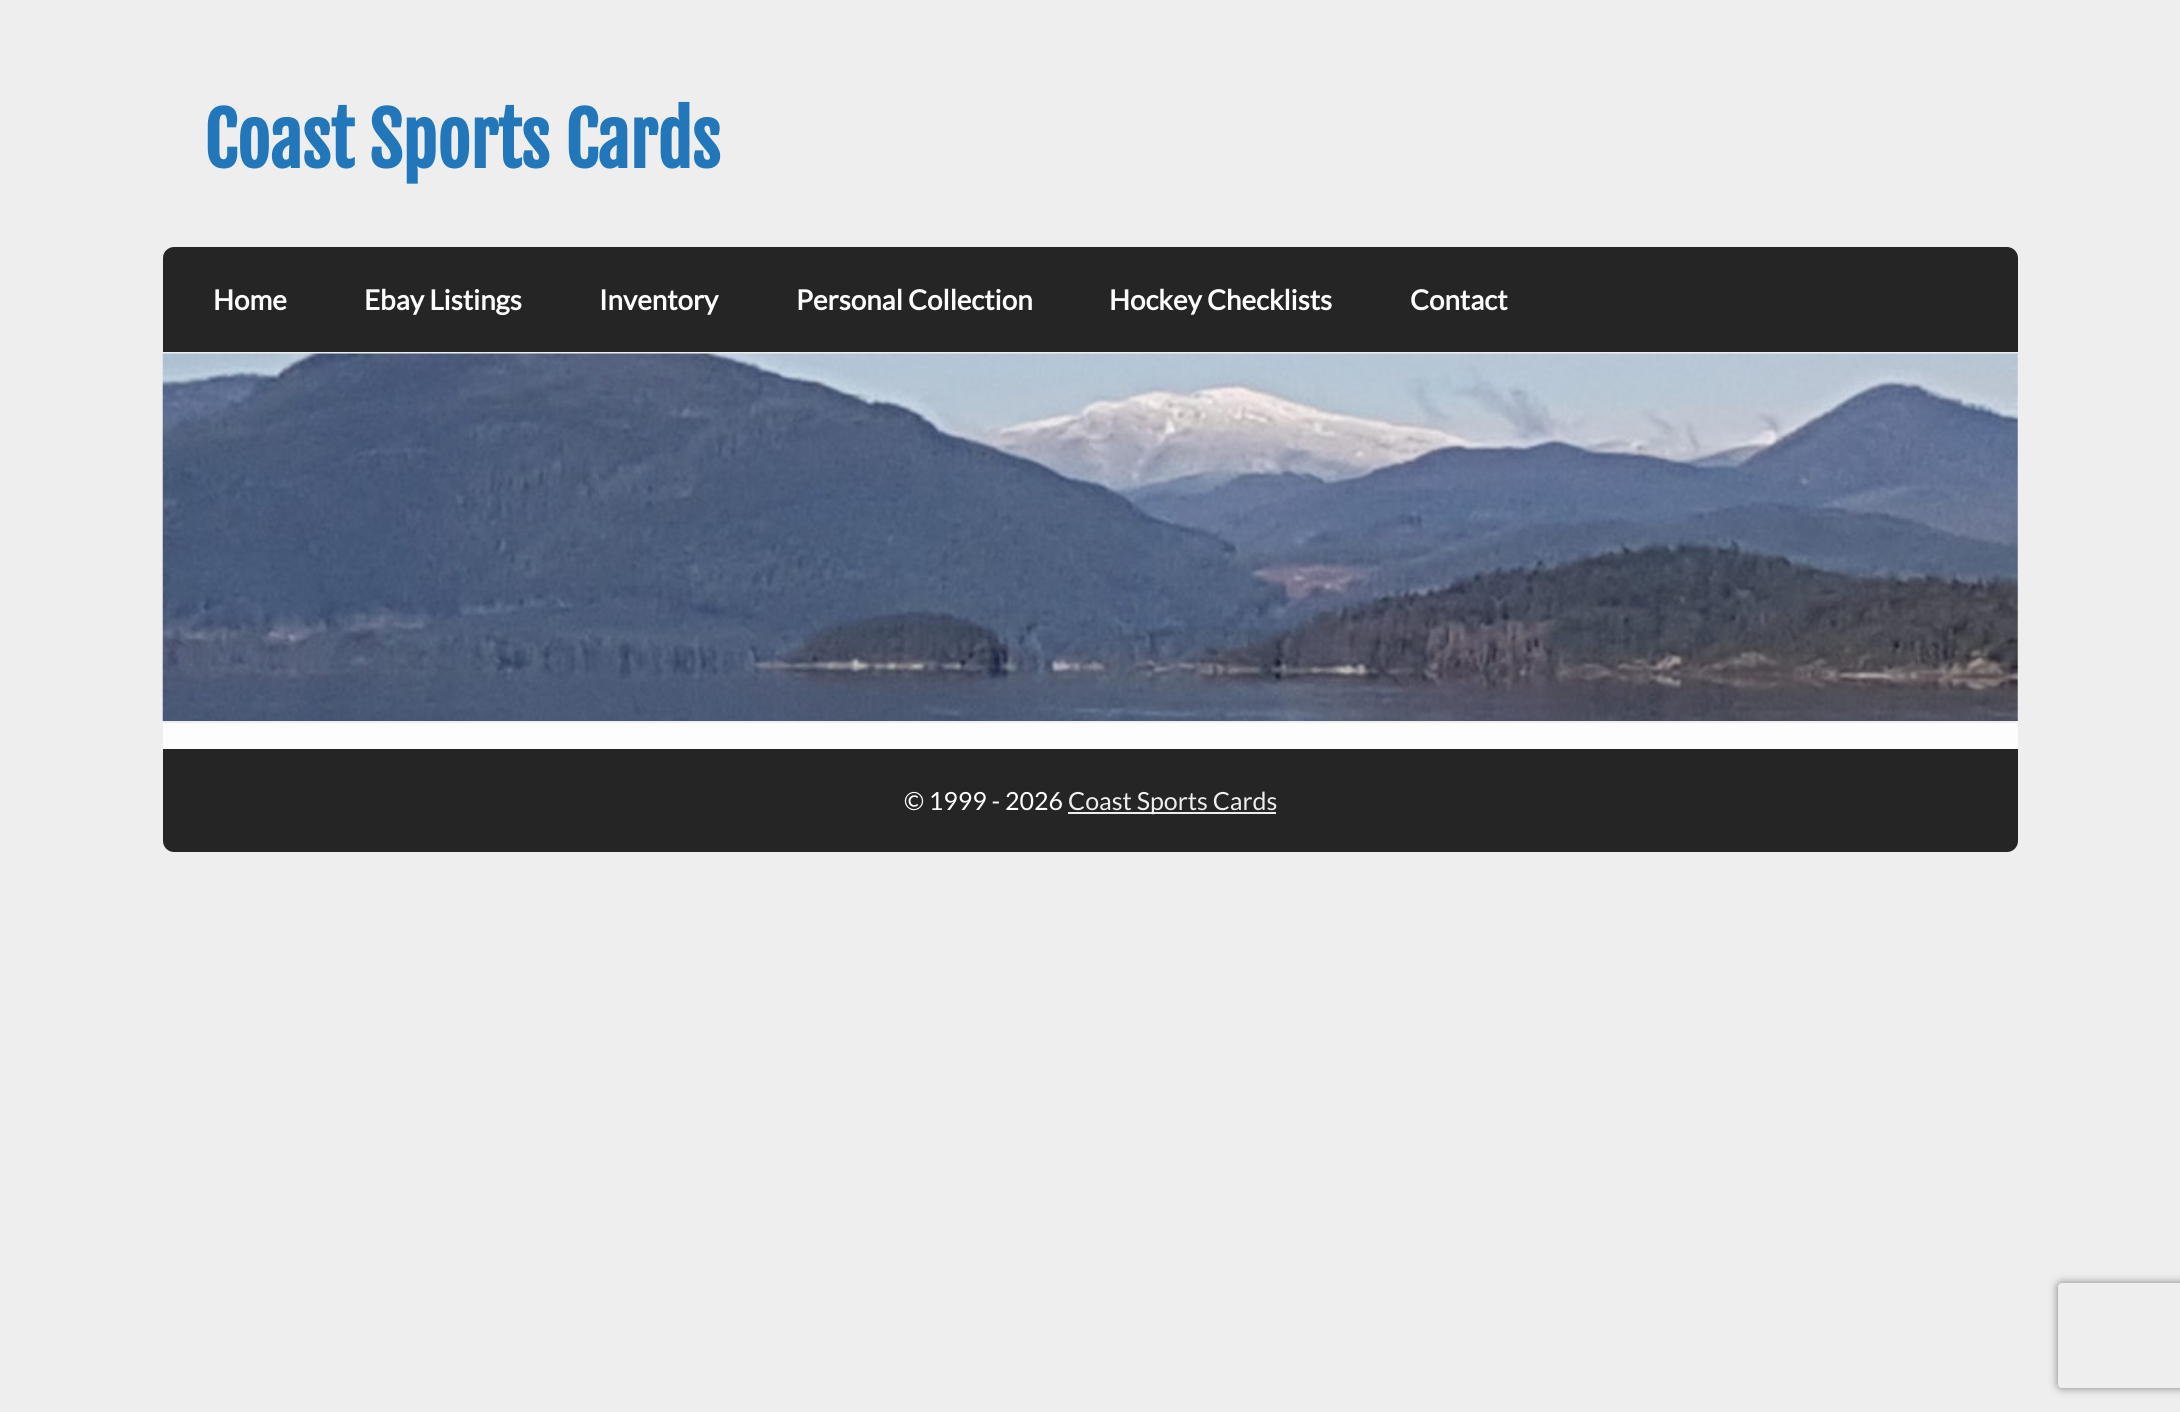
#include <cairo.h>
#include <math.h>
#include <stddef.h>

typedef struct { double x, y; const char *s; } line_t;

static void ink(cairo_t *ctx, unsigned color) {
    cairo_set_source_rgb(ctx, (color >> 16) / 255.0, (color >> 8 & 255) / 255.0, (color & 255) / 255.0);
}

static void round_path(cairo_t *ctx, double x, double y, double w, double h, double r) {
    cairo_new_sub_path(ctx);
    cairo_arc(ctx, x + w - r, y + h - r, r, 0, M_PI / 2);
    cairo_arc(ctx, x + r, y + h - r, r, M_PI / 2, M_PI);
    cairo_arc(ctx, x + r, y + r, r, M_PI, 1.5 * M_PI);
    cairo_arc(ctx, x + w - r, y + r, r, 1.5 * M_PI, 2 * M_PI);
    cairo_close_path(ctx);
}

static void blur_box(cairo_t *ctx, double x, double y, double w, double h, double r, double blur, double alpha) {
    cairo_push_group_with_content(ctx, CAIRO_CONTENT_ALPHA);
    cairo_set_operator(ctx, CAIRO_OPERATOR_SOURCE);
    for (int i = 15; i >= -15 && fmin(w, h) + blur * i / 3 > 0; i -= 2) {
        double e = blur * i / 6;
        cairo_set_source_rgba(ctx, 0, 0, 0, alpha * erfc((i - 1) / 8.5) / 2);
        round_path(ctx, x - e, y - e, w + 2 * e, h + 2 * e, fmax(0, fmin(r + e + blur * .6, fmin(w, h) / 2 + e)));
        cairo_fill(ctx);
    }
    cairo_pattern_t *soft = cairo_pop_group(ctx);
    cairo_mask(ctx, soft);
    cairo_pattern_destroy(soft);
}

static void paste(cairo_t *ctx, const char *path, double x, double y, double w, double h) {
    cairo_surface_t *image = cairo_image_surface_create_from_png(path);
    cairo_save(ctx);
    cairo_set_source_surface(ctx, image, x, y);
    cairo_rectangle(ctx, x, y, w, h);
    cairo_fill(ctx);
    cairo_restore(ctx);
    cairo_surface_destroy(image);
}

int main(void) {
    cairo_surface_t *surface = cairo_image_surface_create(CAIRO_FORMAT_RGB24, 2180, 1412);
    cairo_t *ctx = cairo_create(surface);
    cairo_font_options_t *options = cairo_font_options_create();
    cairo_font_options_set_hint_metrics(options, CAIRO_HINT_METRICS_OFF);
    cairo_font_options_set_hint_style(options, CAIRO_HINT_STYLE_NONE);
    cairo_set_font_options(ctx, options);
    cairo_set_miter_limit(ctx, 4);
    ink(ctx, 0xEEEEEE);
    cairo_paint(ctx);
    cairo_select_font_face(ctx, "Fjalla One", CAIRO_FONT_SLANT_NORMAL, CAIRO_FONT_WEIGHT_BOLD);
    cairo_set_font_size(ctx, 72);
    ink(ctx, 0x2277BB);
    cairo_move_to(ctx, 204, 168);
    cairo_show_text(ctx, "Coast Sports Cards");
    ink(ctx, 0x252525);
    cairo_new_path(ctx);
    cairo_move_to(ctx, 174, 247);
    cairo_line_to(ctx, 2007, 247);
    cairo_curve_to(ctx, 2013, 247, 2018, 252, 2018, 258);
    cairo_line_to(ctx, 2018, 352);
    cairo_line_to(ctx, 163, 352);
    cairo_line_to(ctx, 163, 258);
    cairo_curve_to(ctx, 163, 252, 168, 247, 174, 247);
    cairo_close_path(ctx);
    cairo_fill(ctx);
    cairo_select_font_face(ctx, "Lato", CAIRO_FONT_SLANT_NORMAL, CAIRO_FONT_WEIGHT_BOLD);
    cairo_set_font_size(ctx, 27.75);
    ink(ctx, 0xFFFFFF);
    {
        static const line_t items[] = {
            {213, 310, "Home"},
            {364, 310, "Ebay Listings"},
            {599, 310, "Inventory"},
            {796, 310, "Personal Collection"},
            {1109, 310, "Hockey Checklists"},
            {1410, 310, "Contact"},
        };
        for (size_t i = 0; i < sizeof items / sizeof *items; i++) {
            cairo_move_to(ctx, items[i].x, items[i].y);
            cairo_show_text(ctx, items[i].s);
        }
    }
    paste(ctx, "media/1.png", 162, 353, 1856, 368);
    ink(ctx, 0xFDFDFD);
    cairo_rectangle(ctx, 163, 723, 1855, 26);
    cairo_fill(ctx);
    ink(ctx, 0x252525);
    cairo_new_path(ctx);
    cairo_move_to(ctx, 163, 749);
    cairo_line_to(ctx, 2018, 749);
    cairo_line_to(ctx, 2018, 841);
    cairo_curve_to(ctx, 2018, 847, 2013, 852, 2007, 852);
    cairo_line_to(ctx, 174, 852);
    cairo_curve_to(ctx, 168, 852, 163, 847, 163, 841);
    cairo_close_path(ctx);
    cairo_fill(ctx);
    cairo_select_font_face(ctx, "Lato", CAIRO_FONT_SLANT_NORMAL, CAIRO_FONT_WEIGHT_NORMAL);
    cairo_set_font_size(ctx, 25);
    ink(ctx, 0xFFFFFF);
    cairo_move_to(ctx, 904, 810);
    cairo_show_text(ctx, "© 1999 - 2026");
    ink(ctx, 0xEEEEEE);
    cairo_rectangle(ctx, 1068, 812, 208, 2);
    cairo_fill(ctx);
    cairo_move_to(ctx, 1068, 810);
    cairo_show_text(ctx, "Coast Sports Cards");
    cairo_save(ctx);
    cairo_set_fill_rule(ctx, CAIRO_FILL_RULE_EVEN_ODD);
    cairo_new_path(ctx);
    cairo_move_to(ctx, 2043, 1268);
    cairo_line_to(ctx, 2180, 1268);
    cairo_line_to(ctx, 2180, 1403);
    cairo_line_to(ctx, 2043, 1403);
    cairo_close_path(ctx);
    cairo_move_to(ctx, 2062, 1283);
    cairo_line_to(ctx, 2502, 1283);
    cairo_curve_to(ctx, 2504, 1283, 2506, 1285, 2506, 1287);
    cairo_line_to(ctx, 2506, 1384);
    cairo_curve_to(ctx, 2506, 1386, 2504, 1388, 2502, 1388);
    cairo_line_to(ctx, 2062, 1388);
    cairo_curve_to(ctx, 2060, 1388, 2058, 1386, 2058, 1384);
    cairo_line_to(ctx, 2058, 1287);
    cairo_curve_to(ctx, 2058, 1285, 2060, 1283, 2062, 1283);
    cairo_close_path(ctx);
    cairo_clip(ctx);
    ink(ctx, 0x808080);
    blur_box(ctx, 2058, 1283, 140, 105, 4, 4.5, 1);
    cairo_restore(ctx);
    cairo_surface_write_to_png(surface, "image.png");
    cairo_font_options_destroy(options);
    cairo_destroy(ctx);
    cairo_surface_destroy(surface);
    return 0;
}
